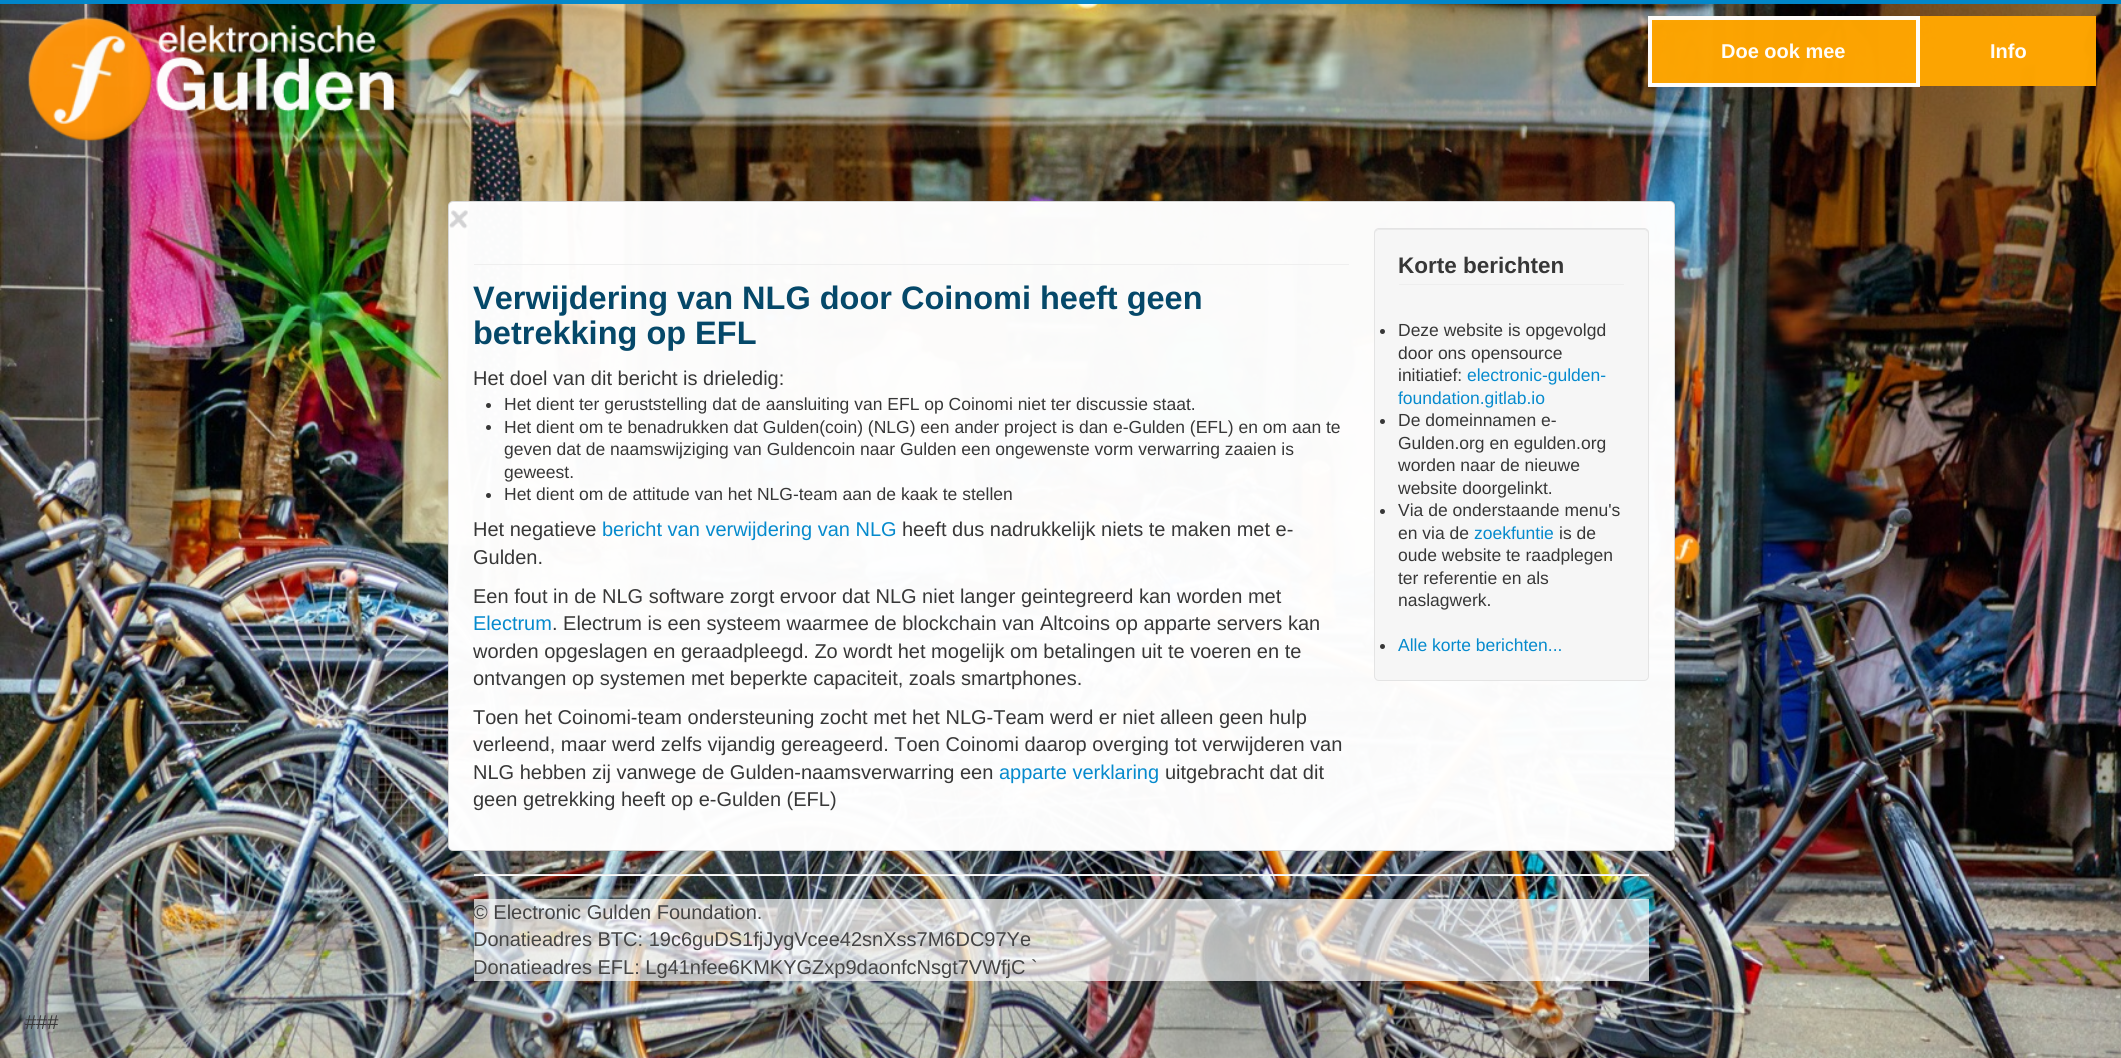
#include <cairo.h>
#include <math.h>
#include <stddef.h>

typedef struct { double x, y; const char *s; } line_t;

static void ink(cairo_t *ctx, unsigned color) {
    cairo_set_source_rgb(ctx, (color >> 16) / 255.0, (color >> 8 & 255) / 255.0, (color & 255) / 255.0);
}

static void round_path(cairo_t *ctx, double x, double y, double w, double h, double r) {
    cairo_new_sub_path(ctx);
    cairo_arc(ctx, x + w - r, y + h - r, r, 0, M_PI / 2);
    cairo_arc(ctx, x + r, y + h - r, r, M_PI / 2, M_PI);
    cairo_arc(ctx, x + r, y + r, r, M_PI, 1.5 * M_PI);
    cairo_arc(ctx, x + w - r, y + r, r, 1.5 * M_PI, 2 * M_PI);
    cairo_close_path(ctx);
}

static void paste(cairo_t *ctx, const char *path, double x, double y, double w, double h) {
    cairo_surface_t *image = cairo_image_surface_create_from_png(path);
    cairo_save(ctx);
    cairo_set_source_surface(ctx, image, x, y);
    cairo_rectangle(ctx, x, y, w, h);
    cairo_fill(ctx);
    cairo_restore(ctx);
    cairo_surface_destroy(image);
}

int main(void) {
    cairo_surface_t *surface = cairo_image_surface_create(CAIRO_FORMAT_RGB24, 2121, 1058);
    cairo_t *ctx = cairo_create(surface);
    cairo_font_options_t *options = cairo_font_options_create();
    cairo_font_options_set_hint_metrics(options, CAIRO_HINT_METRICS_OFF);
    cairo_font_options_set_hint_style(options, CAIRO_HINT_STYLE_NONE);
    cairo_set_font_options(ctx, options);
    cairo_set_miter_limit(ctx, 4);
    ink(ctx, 0xFFFFFF);
    cairo_paint(ctx);
    paste(ctx, "media/1.png", 0, 0, 2121, 1058);
    cairo_set_source_rgba(ctx, 0, 0.533, 0.8, 0.98);
    cairo_rectangle(ctx, 0, 0, 2121, 4);
    cairo_fill(ctx);
    paste(ctx, "media/2.png", 27, 17, 367, 125);
    cairo_set_source_rgba(ctx, 1, 0.647, 0, 0.98);
    cairo_rectangle(ctx, 1648, 16, 448, 70);
    cairo_fill(ctx);
    cairo_set_source_rgba(ctx, 1, 1, 1, 0.98);
    cairo_rectangle(ctx, 1648, 16, 272, 4);
    cairo_fill(ctx);
    cairo_rectangle(ctx, 1916, 16, 4, 70);
    cairo_fill(ctx);
    cairo_rectangle(ctx, 1648, 83, 272, 4);
    cairo_fill(ctx);
    cairo_rectangle(ctx, 1648, 16, 4, 70);
    cairo_fill(ctx);
    cairo_select_font_face(ctx, "Liberation Sans", CAIRO_FONT_SLANT_NORMAL, CAIRO_FONT_WEIGHT_BOLD);
    cairo_set_font_size(ctx, 20);
    ink(ctx, 0xFFFDFA);
    cairo_move_to(ctx, 1721, 58);
    cairo_show_text(ctx, "Doe ook mee");
    cairo_move_to(ctx, 1990, 58);
    cairo_show_text(ctx, "Info");
    cairo_set_source_rgba(ctx, 1, 1, 1, 0.98);
    round_path(ctx, 448, 201, 1227, 650, 5);
    cairo_fill(ctx);
    round_path(ctx, 448.5, 201.5, 1226, 649, 4.5);
    cairo_set_source_rgba(ctx, 0, 0, 0, 0.15);
    cairo_set_line_width(ctx, 1);
    cairo_stroke(ctx);
    cairo_set_source_rgba(ctx, 0.933, 0.933, 0.933, 0.98);
    cairo_rectangle(ctx, 474, 264, 875, 1);
    cairo_fill(ctx);
    paste(ctx, "media/3.png", 449, 210, 19, 19);
    cairo_set_font_size(ctx, 32.5);
    ink(ctx, 0x054869);
    cairo_move_to(ctx, 473, 309);
    cairo_show_text(ctx, "Verwijdering van NLG door Coinomi heeft geen");
    cairo_move_to(ctx, 473, 344);
    cairo_show_text(ctx, "betrekking op EFL");
    cairo_select_font_face(ctx, "Liberation Sans", CAIRO_FONT_SLANT_NORMAL, CAIRO_FONT_WEIGHT_NORMAL);
    cairo_set_font_size(ctx, 20);
    ink(ctx, 0x373737);
    cairo_move_to(ctx, 473, 385);
    cairo_show_text(ctx, "Het doel van dit bericht is drieledig:");
    cairo_new_path(ctx);
    cairo_arc(ctx, 488.5, 405.5, 2.5, 0, 2 * M_PI);
    cairo_fill(ctx);
    cairo_set_font_size(ctx, 17.5);
    cairo_move_to(ctx, 504, 410);
    cairo_show_text(ctx, "Het dient ter geruststelling dat de aansluiting van EFL op Coinomi niet ter discussie staat.");
    cairo_new_path(ctx);
    cairo_arc(ctx, 488.5, 427.5, 2.5, 0, 2 * M_PI);
    cairo_fill(ctx);
    {
        static const line_t items[] = {
            {504, 433, "Het dient om te benadrukken dat Gulden(coin) (NLG) een ander project is dan e-Gulden (EFL) en om aan te"},
            {504, 455, "geven dat de naamswijziging van Guldencoin naar Gulden een ongewenste vorm verwarring zaaien is"},
            {504, 478, "geweest."},
        };
        for (size_t i = 0; i < sizeof items / sizeof *items; i++) {
            cairo_move_to(ctx, items[i].x, items[i].y);
            cairo_show_text(ctx, items[i].s);
        }
    }
    cairo_set_source_rgba(ctx, 0.2, 0.2, 0.2, 0.98);
    cairo_new_path(ctx);
    cairo_arc(ctx, 488.5, 495.5, 2.5, 0, 2 * M_PI);
    cairo_fill(ctx);
    ink(ctx, 0x373737);
    cairo_move_to(ctx, 504, 500);
    cairo_show_text(ctx, "Het dient om de attitude van het NLG-team aan de kaak te stellen");
    cairo_set_font_size(ctx, 20);
    cairo_move_to(ctx, 473, 536);
    cairo_show_text(ctx, "Het negatieve");
    ink(ctx, 0x058ACD);
    cairo_move_to(ctx, 602, 536);
    cairo_show_text(ctx, "bericht van verwijdering van NLG");
    ink(ctx, 0x373737);
    {
        static const line_t items[] = {
            {902, 536, "heeft dus nadrukkelijk niets te maken met e-"},
            {473, 564, "Gulden."},
            {473, 603, "Een fout in de NLG software zorgt ervoor dat NLG niet langer geintegreerd kan worden met"},
        };
        for (size_t i = 0; i < sizeof items / sizeof *items; i++) {
            cairo_move_to(ctx, items[i].x, items[i].y);
            cairo_show_text(ctx, items[i].s);
        }
    }
    ink(ctx, 0x058ACD);
    cairo_move_to(ctx, 473, 630);
    cairo_show_text(ctx, "Electrum");
    ink(ctx, 0x373737);
    {
        static const line_t items[] = {
            {552, 630, ". Electrum is een systeem waarmee de blockchain van Altcoins op apparte servers kan"},
            {473, 658, "worden opgeslagen en geraadpleegd. Zo wordt het mogelijk om betalingen uit te voeren en te"},
            {473, 685, "ontvangen op systemen met beperkte capaciteit, zoals smartphones."},
            {473, 724, "Toen het Coinomi-team ondersteuning zocht met het NLG-Team werd er niet alleen geen hulp"},
            {473, 751, "verleend, maar werd zelfs vijandig gereageerd. Toen Coinomi daarop overging tot verwijderen van"},
            {473, 779, "NLG hebben zij vanwege de Gulden-naamsverwarring een"},
        };
        for (size_t i = 0; i < sizeof items / sizeof *items; i++) {
            cairo_move_to(ctx, items[i].x, items[i].y);
            cairo_show_text(ctx, items[i].s);
        }
    }
    ink(ctx, 0x058ACD);
    cairo_move_to(ctx, 999, 779);
    cairo_show_text(ctx, "apparte verklaring");
    ink(ctx, 0x373737);
    cairo_move_to(ctx, 1165, 779);
    cairo_show_text(ctx, "uitgebracht dat dit");
    cairo_move_to(ctx, 473, 806);
    cairo_show_text(ctx, "geen getrekking heeft op e-Gulden (EFL)");
    cairo_set_source_rgba(ctx, 0.961, 0.961, 0.961, 0.98);
    round_path(ctx, 1374, 228, 275, 453, 5);
    cairo_fill(ctx);
    ink(ctx, 0xE9E9E9);
    cairo_new_path(ctx);
    cairo_move_to(ctx, 1379, 230);
    cairo_line_to(ctx, 1644, 230);
    cairo_curve_to(ctx, 1646, 230, 1648, 232, 1648, 234);
    cairo_curve_to(ctx, 1648, 231, 1647, 229, 1644, 229);
    cairo_line_to(ctx, 1379, 229);
    cairo_curve_to(ctx, 1376, 229, 1375, 231, 1375, 234);
    cairo_curve_to(ctx, 1375, 232, 1377, 230, 1379, 230);
    cairo_close_path(ctx);
    cairo_fill(ctx);
    round_path(ctx, 1374.5, 228.5, 274, 452, 4.5);
    cairo_set_source_rgba(ctx, 0.89, 0.89, 0.89, 0.98);
    cairo_stroke(ctx);
    ink(ctx, 0xEEEEEE);
    cairo_rectangle(ctx, 1399, 284, 225, 1);
    cairo_fill(ctx);
    cairo_select_font_face(ctx, "Liberation Sans", CAIRO_FONT_SLANT_NORMAL, CAIRO_FONT_WEIGHT_BOLD);
    cairo_set_font_size(ctx, 22.5);
    ink(ctx, 0x373737);
    cairo_move_to(ctx, 1398, 273);
    cairo_show_text(ctx, "Korte berichten");
    cairo_new_path(ctx);
    cairo_arc(ctx, 1382.5, 331.5, 2.5, 0, 2 * M_PI);
    cairo_fill(ctx);
    cairo_select_font_face(ctx, "Liberation Sans", CAIRO_FONT_SLANT_NORMAL, CAIRO_FONT_WEIGHT_NORMAL);
    cairo_set_font_size(ctx, 17.5);
    {
        static const line_t items[] = {
            {1398, 336, "Deze website is opgevolgd"},
            {1398, 359, "door ons opensource"},
            {1398, 381, "initiatief:"},
        };
        for (size_t i = 0; i < sizeof items / sizeof *items; i++) {
            cairo_move_to(ctx, items[i].x, items[i].y);
            cairo_show_text(ctx, items[i].s);
        }
    }
    ink(ctx, 0x058ACD);
    cairo_move_to(ctx, 1467, 381);
    cairo_show_text(ctx, "electronic-gulden-");
    cairo_move_to(ctx, 1398, 404);
    cairo_show_text(ctx, "foundation.gitlab.io");
    ink(ctx, 0x373737);
    cairo_new_path(ctx);
    cairo_arc(ctx, 1382.5, 421.5, 2.5, 0, 2 * M_PI);
    cairo_fill(ctx);
    {
        static const line_t items[] = {
            {1398, 426, "De domeinnamen e-"},
            {1398, 449, "Gulden.org en egulden.org"},
            {1398, 471, "worden naar de nieuwe"},
            {1398, 494, "website doorgelinkt."},
        };
        for (size_t i = 0; i < sizeof items / sizeof *items; i++) {
            cairo_move_to(ctx, items[i].x, items[i].y);
            cairo_show_text(ctx, items[i].s);
        }
    }
    cairo_new_path(ctx);
    cairo_arc(ctx, 1382.5, 511.5, 2.5, 0, 2 * M_PI);
    cairo_fill(ctx);
    cairo_move_to(ctx, 1398, 516);
    cairo_show_text(ctx, "Via de onderstaande menu's");
    cairo_move_to(ctx, 1398, 539);
    cairo_show_text(ctx, "en via de");
    ink(ctx, 0x058ACD);
    cairo_move_to(ctx, 1474, 539);
    cairo_show_text(ctx, "zoekfuntie");
    ink(ctx, 0x373737);
    {
        static const line_t items[] = {
            {1559, 539, "is de"},
            {1398, 561, "oude website te raadplegen"},
            {1398, 584, "ter referentie en als"},
            {1398, 606, "naslagwerk."},
        };
        for (size_t i = 0; i < sizeof items / sizeof *items; i++) {
            cairo_move_to(ctx, items[i].x, items[i].y);
            cairo_show_text(ctx, items[i].s);
        }
    }
    cairo_new_path(ctx);
    cairo_arc(ctx, 1382.5, 646.5, 2.5, 0, 2 * M_PI);
    cairo_fill(ctx);
    ink(ctx, 0x058ACD);
    cairo_move_to(ctx, 1398, 651);
    cairo_show_text(ctx, "Alle korte berichten...");
    cairo_set_source_rgba(ctx, 0.933, 0.933, 0.933, 0.98);
    cairo_rectangle(ctx, 474, 874, 1175, 1);
    cairo_fill(ctx);
    cairo_set_source_rgba(ctx, 1, 1, 1, 0.98);
    cairo_rectangle(ctx, 474, 875, 1175, 1);
    cairo_fill(ctx);
    cairo_set_source_rgba(ctx, 1, 1, 1, 0.69);
    cairo_rectangle(ctx, 474, 899, 1175, 82);
    cairo_fill(ctx);
    cairo_set_font_size(ctx, 20);
    ink(ctx, 0x444444);
    {
        static const line_t items[] = {
            {473, 919, "© Electronic Gulden Foundation."},
            {473, 946, "Donatieadres BTC: 19c6guDS1fjJygVcee42snXss7M6DC97Ye"},
            {473, 974, "Donatieadres EFL: Lg41nfee6KMKYGZxp9daonfcNsgt7VWfjC"},
            {1031, 974, "`"},
        };
        for (size_t i = 0; i < sizeof items / sizeof *items; i++) {
            cairo_move_to(ctx, items[i].x, items[i].y);
            cairo_show_text(ctx, items[i].s);
        }
    }
    ink(ctx, 0x373737);
    cairo_move_to(ctx, 25, 1029);
    cairo_show_text(ctx, "###");
    cairo_surface_write_to_png(surface, "image.png");
    cairo_font_options_destroy(options);
    cairo_destroy(ctx);
    cairo_surface_destroy(surface);
    return 0;
}
